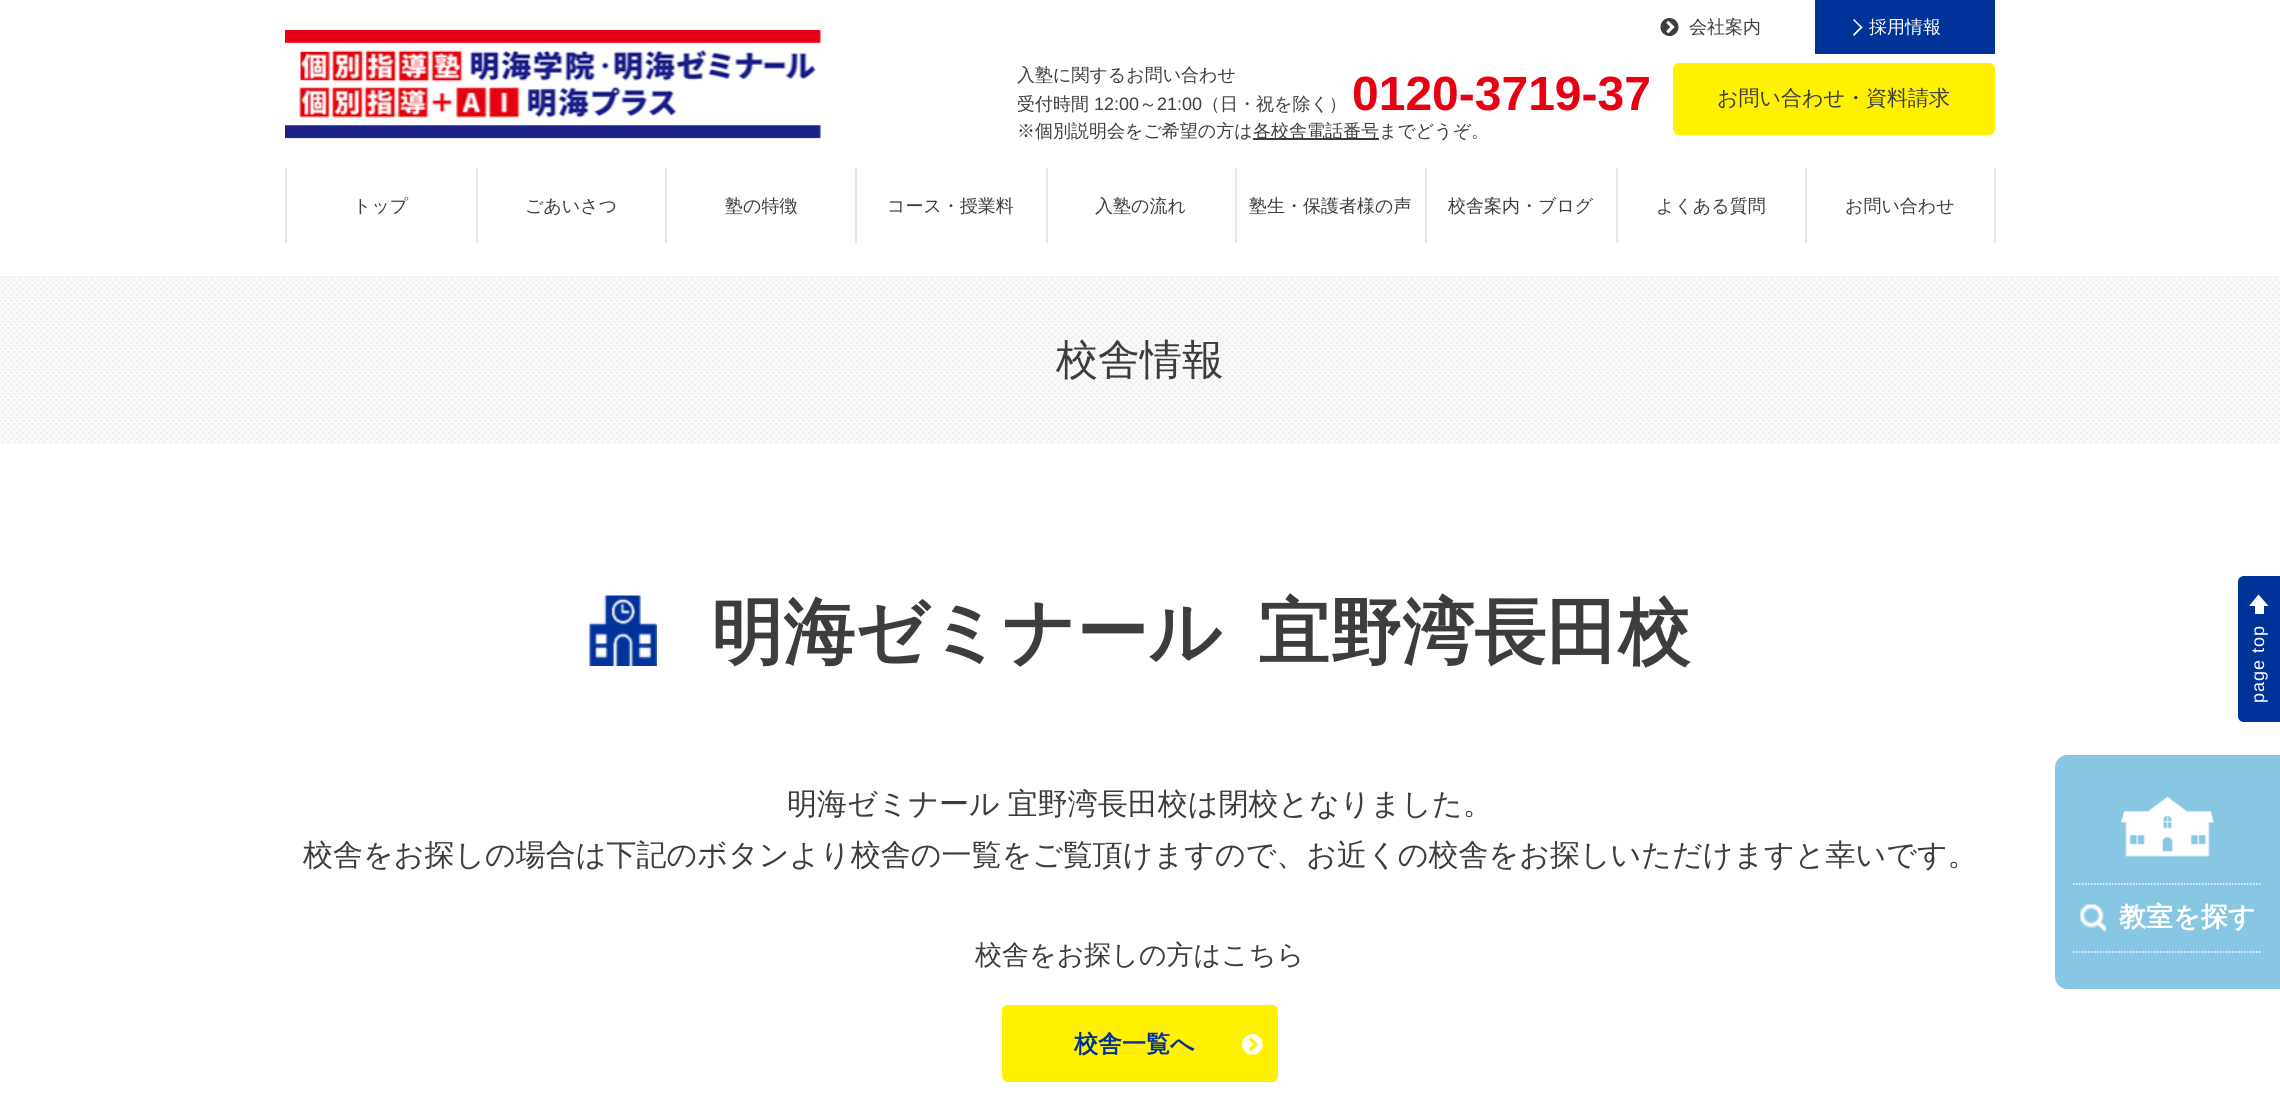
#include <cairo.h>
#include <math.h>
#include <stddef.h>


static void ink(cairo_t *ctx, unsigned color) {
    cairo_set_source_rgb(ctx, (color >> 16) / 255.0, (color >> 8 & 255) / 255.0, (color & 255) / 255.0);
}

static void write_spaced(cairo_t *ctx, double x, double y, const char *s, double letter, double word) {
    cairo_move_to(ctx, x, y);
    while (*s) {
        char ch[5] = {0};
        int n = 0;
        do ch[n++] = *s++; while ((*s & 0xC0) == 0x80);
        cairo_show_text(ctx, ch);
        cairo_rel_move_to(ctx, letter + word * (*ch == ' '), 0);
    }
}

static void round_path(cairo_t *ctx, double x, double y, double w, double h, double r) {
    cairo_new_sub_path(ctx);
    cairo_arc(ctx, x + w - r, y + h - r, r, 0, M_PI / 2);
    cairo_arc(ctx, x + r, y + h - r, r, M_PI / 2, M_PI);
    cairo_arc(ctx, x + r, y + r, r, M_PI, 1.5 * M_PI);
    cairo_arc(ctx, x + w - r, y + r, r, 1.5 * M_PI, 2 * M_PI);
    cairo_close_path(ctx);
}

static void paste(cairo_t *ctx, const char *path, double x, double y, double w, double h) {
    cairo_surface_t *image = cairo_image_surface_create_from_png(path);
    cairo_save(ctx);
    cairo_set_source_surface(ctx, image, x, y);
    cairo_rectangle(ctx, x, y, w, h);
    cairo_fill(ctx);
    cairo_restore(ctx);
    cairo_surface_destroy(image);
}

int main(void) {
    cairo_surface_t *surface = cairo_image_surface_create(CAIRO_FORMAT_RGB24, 2280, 1096);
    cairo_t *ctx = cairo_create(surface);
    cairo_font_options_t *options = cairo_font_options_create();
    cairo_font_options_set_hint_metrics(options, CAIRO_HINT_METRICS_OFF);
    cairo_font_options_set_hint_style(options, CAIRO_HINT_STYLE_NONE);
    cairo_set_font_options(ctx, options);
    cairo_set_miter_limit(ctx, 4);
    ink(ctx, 0xFFFFFF);
    cairo_paint(ctx);
    ink(ctx, 0xF5F5F5);
    cairo_rectangle(ctx, 0, 276, 2280, 2);
    cairo_fill(ctx);
    paste(ctx, "media/1.png", 1660, 18, 19, 18);
    cairo_select_font_face(ctx, "WenQuanYi Zen Hei Medium", CAIRO_FONT_SLANT_NORMAL, CAIRO_FONT_WEIGHT_NORMAL);
    cairo_set_font_size(ctx, 18);
    ink(ctx, 0x3D3D3D);
    cairo_move_to(ctx, 1689, 33);
    cairo_show_text(ctx, "会社案内");
    ink(ctx, 0x003399);
    cairo_rectangle(ctx, 1815, 0, 180, 54);
    cairo_fill(ctx);
    ink(ctx, 0xFFFFFF);
    cairo_new_path(ctx);
    cairo_move_to(ctx, 1853, 20);
    cairo_line_to(ctx, 1854, 19);
    cairo_line_to(ctx, 1862.5, 27.5);
    cairo_line_to(ctx, 1861.5, 28.5);
    cairo_close_path(ctx);
    cairo_fill(ctx);
    cairo_new_path(ctx);
    cairo_move_to(ctx, 1853, 34.5);
    cairo_line_to(ctx, 1861.5, 26);
    cairo_line_to(ctx, 1862.5, 27.5);
    cairo_line_to(ctx, 1854, 36);
    cairo_close_path(ctx);
    cairo_fill(ctx);
    cairo_move_to(ctx, 1869, 33);
    cairo_show_text(ctx, "採用情報");
    ink(ctx, 0xE6E6E6);
    cairo_rectangle(ctx, 285, 168, 2, 75);
    cairo_fill(ctx);
    ink(ctx, 0x3D3D3D);
    cairo_move_to(ctx, 353, 212);
    cairo_show_text(ctx, "トップ");
    ink(ctx, 0xE6E6E6);
    cairo_rectangle(ctx, 476, 168, 2, 75);
    cairo_fill(ctx);
    ink(ctx, 0x3D3D3D);
    cairo_move_to(ctx, 525, 212);
    cairo_show_text(ctx, "ごあいさつ");
    ink(ctx, 0xE6E6E6);
    cairo_rectangle(ctx, 665, 168, 2, 75);
    cairo_fill(ctx);
    ink(ctx, 0x3D3D3D);
    cairo_move_to(ctx, 725, 212);
    cairo_show_text(ctx, "塾の特徴");
    ink(ctx, 0xE6E6E6);
    cairo_rectangle(ctx, 855, 168, 2, 75);
    cairo_fill(ctx);
    ink(ctx, 0x3D3D3D);
    cairo_move_to(ctx, 887, 212);
    cairo_show_text(ctx, "コース・授業料");
    ink(ctx, 0xE6E6E6);
    cairo_rectangle(ctx, 1046, 168, 2, 75);
    cairo_fill(ctx);
    ink(ctx, 0x3D3D3D);
    cairo_move_to(ctx, 1095, 212);
    cairo_show_text(ctx, "入塾の流れ");
    ink(ctx, 0xE6E6E6);
    cairo_rectangle(ctx, 1235, 168, 2, 75);
    cairo_fill(ctx);
    ink(ctx, 0x3D3D3D);
    cairo_move_to(ctx, 1249, 212);
    cairo_show_text(ctx, "塾生・保護者様の声");
    ink(ctx, 0xE6E6E6);
    cairo_rectangle(ctx, 1425, 168, 2, 75);
    cairo_fill(ctx);
    ink(ctx, 0x3D3D3D);
    cairo_move_to(ctx, 1448, 212);
    cairo_show_text(ctx, "校舎案内・ブログ");
    ink(ctx, 0xE6E6E6);
    cairo_rectangle(ctx, 1616, 168, 2, 75);
    cairo_fill(ctx);
    ink(ctx, 0x3D3D3D);
    cairo_move_to(ctx, 1656, 212);
    cairo_show_text(ctx, "よくある質問");
    ink(ctx, 0xE6E6E6);
    cairo_rectangle(ctx, 1994, 168, 2, 75);
    cairo_fill(ctx);
    cairo_rectangle(ctx, 1805, 168, 2, 75);
    cairo_fill(ctx);
    ink(ctx, 0x3D3D3D);
    cairo_move_to(ctx, 1845, 212);
    cairo_show_text(ctx, "お問い合わせ");
    paste(ctx, "media/2.png", 285, 30, 536, 109);
    cairo_move_to(ctx, 1017, 81);
    cairo_show_text(ctx, "入塾に関するお問い合わせ");
    cairo_select_font_face(ctx, "Liberation Sans", CAIRO_FONT_SLANT_NORMAL, CAIRO_FONT_WEIGHT_BOLD);
    cairo_set_font_size(ctx, 48);
    ink(ctx, 0xE60012);
    cairo_move_to(ctx, 1352, 110);
    cairo_show_text(ctx, "0120-3719-37");
    cairo_select_font_face(ctx, "WenQuanYi Zen Hei Medium", CAIRO_FONT_SLANT_NORMAL, CAIRO_FONT_WEIGHT_NORMAL);
    cairo_set_font_size(ctx, 18);
    ink(ctx, 0x3D3D3D);
    cairo_move_to(ctx, 1017, 110);
    cairo_show_text(ctx, "受付時間");
    cairo_select_font_face(ctx, "Liberation Sans", CAIRO_FONT_SLANT_NORMAL, CAIRO_FONT_WEIGHT_NORMAL);
    cairo_move_to(ctx, 1094, 110);
    cairo_show_text(ctx, "12:00");
    cairo_select_font_face(ctx, "WenQuanYi Zen Hei Medium", CAIRO_FONT_SLANT_NORMAL, CAIRO_FONT_WEIGHT_NORMAL);
    cairo_move_to(ctx, 1139, 110);
    cairo_show_text(ctx, "～");
    cairo_select_font_face(ctx, "Liberation Sans", CAIRO_FONT_SLANT_NORMAL, CAIRO_FONT_WEIGHT_NORMAL);
    cairo_move_to(ctx, 1157, 110);
    cairo_show_text(ctx, "21:00");
    cairo_select_font_face(ctx, "WenQuanYi Zen Hei Medium", CAIRO_FONT_SLANT_NORMAL, CAIRO_FONT_WEIGHT_NORMAL);
    cairo_move_to(ctx, 1202, 110);
    cairo_show_text(ctx, "（日・祝を除く）");
    cairo_move_to(ctx, 1017, 137);
    cairo_show_text(ctx, "※個別説明会をご希望の方は");
    cairo_rectangle(ctx, 1253, 138, 126, 2);
    cairo_fill(ctx);
    cairo_move_to(ctx, 1253, 137);
    cairo_show_text(ctx, "各校舎電話番号までどうぞ。");
    ink(ctx, 0xFFF100);
    round_path(ctx, 1673, 63, 322, 72, 6);
    cairo_fill(ctx);
    cairo_set_font_size(ctx, 21);
    ink(ctx, 0x3D3D3D);
    cairo_move_to(ctx, 1717, 105);
    cairo_show_text(ctx, "お問い合わせ・資料請求");
    paste(ctx, "media/3.png", 0, 278, 2280, 166);
    cairo_set_font_size(ctx, 42);
    cairo_move_to(ctx, 1056, 374);
    cairo_show_text(ctx, "校舎情報");
    paste(ctx, "media/4.png", 589, 595, 68, 71);
    cairo_select_font_face(ctx, "WenQuanYi Zen Hei", CAIRO_FONT_SLANT_NORMAL, CAIRO_FONT_WEIGHT_BOLD);
    cairo_set_font_size(ctx, 72);
    cairo_move_to(ctx, 711, 657);
    cairo_show_text(ctx, "明海ゼミナール");
    cairo_move_to(ctx, 1258, 657);
    cairo_show_text(ctx, "宜野湾長田校");
    cairo_select_font_face(ctx, "WenQuanYi Zen Hei Medium", CAIRO_FONT_SLANT_NORMAL, CAIRO_FONT_WEIGHT_NORMAL);
    cairo_set_font_size(ctx, 30);
    write_spaced(ctx, 787, 814, "明海ゼミナール 宜野湾長田校は閉校となりました。", 0, -1);
    cairo_move_to(ctx, 303, 865);
    cairo_show_text(ctx, "校舎をお探しの場合は下記のボタンより校舎の一覧をご覧頂けますので、お近くの校舎をお探しいただけますと幸いです。");
    cairo_set_font_size(ctx, 27);
    cairo_move_to(ctx, 975, 964);
    cairo_show_text(ctx, "校舎をお探しの方はこちら");
    ink(ctx, 0xFFF100);
    round_path(ctx, 1002, 1005, 276, 77, 6);
    cairo_fill(ctx);
    cairo_select_font_face(ctx, "WenQuanYi Zen Hei", CAIRO_FONT_SLANT_NORMAL, CAIRO_FONT_WEIGHT_BOLD);
    cairo_set_font_size(ctx, 24);
    ink(ctx, 0x003399);
    cairo_move_to(ctx, 1074, 1052);
    cairo_show_text(ctx, "校舎一覧へ");
    paste(ctx, "media/5.png", 1242, 1034, 21, 21);
    cairo_new_path(ctx);
    cairo_move_to(ctx, 2244, 576);
    cairo_line_to(ctx, 2280, 576);
    cairo_line_to(ctx, 2280, 722);
    cairo_line_to(ctx, 2244, 722);
    cairo_curve_to(ctx, 2240.5, 722, 2238, 719.5, 2238, 716);
    cairo_line_to(ctx, 2238, 582);
    cairo_curve_to(ctx, 2238, 578.5, 2240.5, 576, 2244, 576);
    cairo_close_path(ctx);
    cairo_fill(ctx);
    ink(ctx, 0xFFFFFF);
    cairo_new_path(ctx);
    cairo_move_to(ctx, 2258.5, 594.5);
    cairo_line_to(ctx, 2268.5, 606);
    cairo_line_to(ctx, 2249, 606);
    cairo_close_path(ctx);
    cairo_fill(ctx);
    cairo_rectangle(ctx, 2255, 606, 9, 8);
    cairo_fill(ctx);
    cairo_select_font_face(ctx, "Liberation Sans", CAIRO_FONT_SLANT_NORMAL, CAIRO_FONT_WEIGHT_NORMAL);
    cairo_set_font_size(ctx, 18);
    cairo_save(ctx);
    cairo_translate(ctx, 2264, 703);
    cairo_rotate(ctx, -90 * M_PI / 180);
    write_spaced(ctx, 0, 0, "page top", 1, 0);
    cairo_restore(ctx);
    ink(ctx, 0x87C7E3);
    cairo_new_path(ctx);
    cairo_move_to(ctx, 2067, 755);
    cairo_line_to(ctx, 2280, 755);
    cairo_line_to(ctx, 2280, 989);
    cairo_line_to(ctx, 2067, 989);
    cairo_curve_to(ctx, 2060.5, 989, 2055, 983.5, 2055, 977);
    cairo_line_to(ctx, 2055, 767);
    cairo_curve_to(ctx, 2055, 760.5, 2060.5, 755, 2067, 755);
    cairo_close_path(ctx);
    cairo_fill(ctx);
    paste(ctx, "media/6.png", 2121, 796, 93, 61);
    cairo_new_path(ctx);
    cairo_move_to(ctx, 2073, 884);
    cairo_line_to(ctx, 2262, 884);
    ink(ctx, 0xFFFFFF);
    cairo_set_line_width(ctx, 1.5);
    cairo_set_dash(ctx, (double[]){1.5, 1.5}, 2, 0);
    cairo_stroke(ctx);
    cairo_new_path(ctx);
    cairo_move_to(ctx, 2073, 952);
    cairo_line_to(ctx, 2262, 952);
    cairo_stroke(ctx);
    paste(ctx, "media/7.png", 2080, 904, 26, 28);
    cairo_select_font_face(ctx, "WenQuanYi Zen Hei", CAIRO_FONT_SLANT_NORMAL, CAIRO_FONT_WEIGHT_BOLD);
    cairo_set_font_size(ctx, 27);
    cairo_move_to(ctx, 2119, 926);
    cairo_show_text(ctx, "教室を探す");
    cairo_surface_write_to_png(surface, "image.png");
    cairo_font_options_destroy(options);
    cairo_destroy(ctx);
    cairo_surface_destroy(surface);
    return 0;
}
